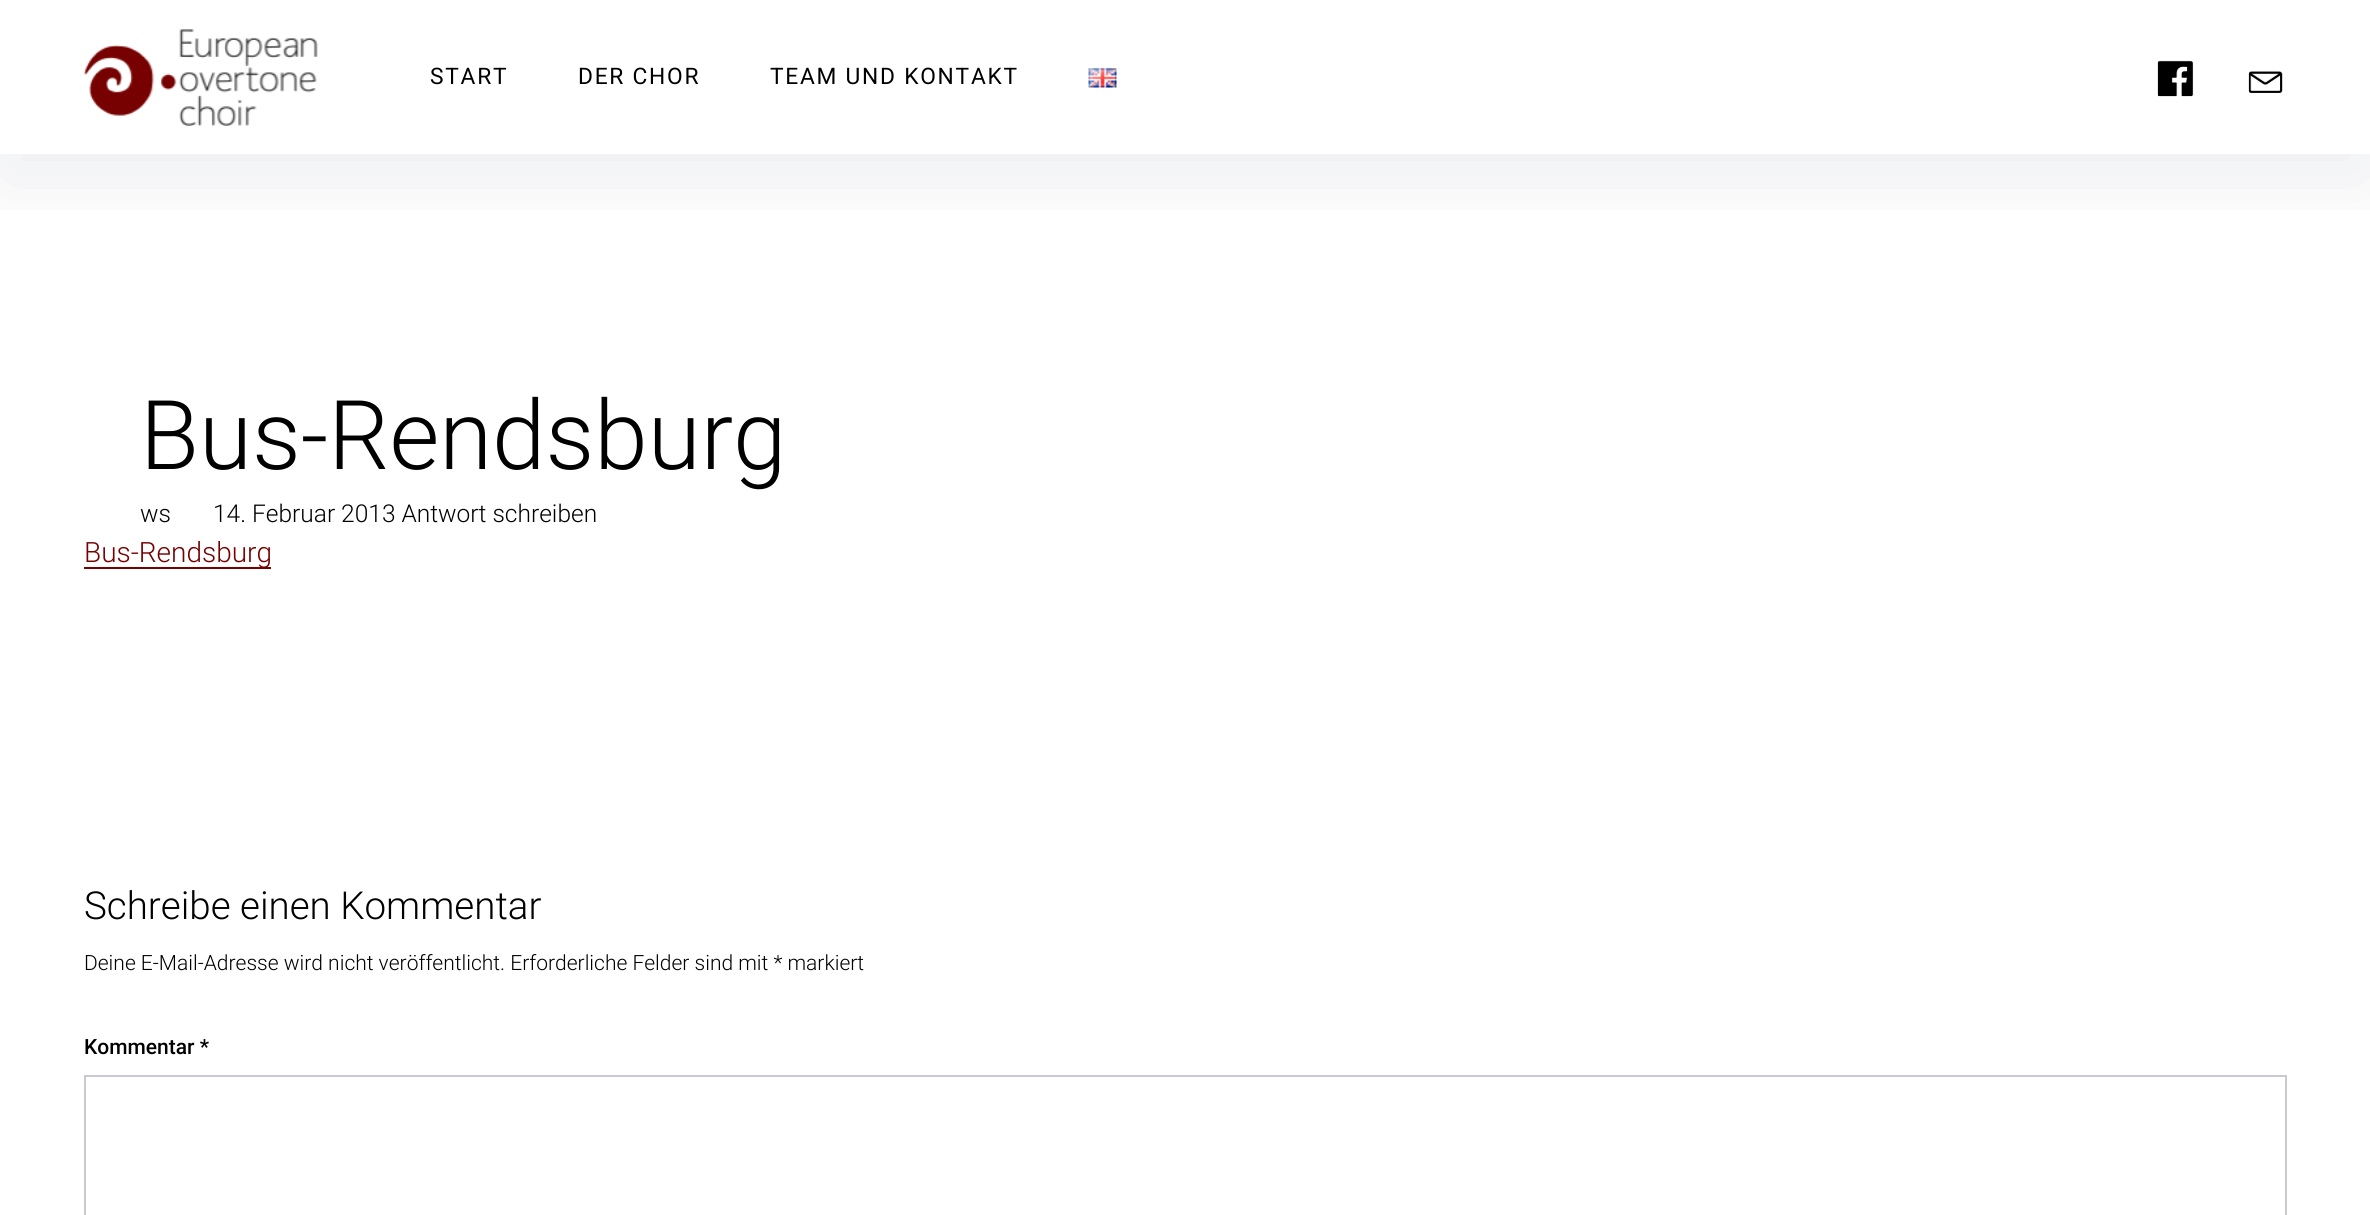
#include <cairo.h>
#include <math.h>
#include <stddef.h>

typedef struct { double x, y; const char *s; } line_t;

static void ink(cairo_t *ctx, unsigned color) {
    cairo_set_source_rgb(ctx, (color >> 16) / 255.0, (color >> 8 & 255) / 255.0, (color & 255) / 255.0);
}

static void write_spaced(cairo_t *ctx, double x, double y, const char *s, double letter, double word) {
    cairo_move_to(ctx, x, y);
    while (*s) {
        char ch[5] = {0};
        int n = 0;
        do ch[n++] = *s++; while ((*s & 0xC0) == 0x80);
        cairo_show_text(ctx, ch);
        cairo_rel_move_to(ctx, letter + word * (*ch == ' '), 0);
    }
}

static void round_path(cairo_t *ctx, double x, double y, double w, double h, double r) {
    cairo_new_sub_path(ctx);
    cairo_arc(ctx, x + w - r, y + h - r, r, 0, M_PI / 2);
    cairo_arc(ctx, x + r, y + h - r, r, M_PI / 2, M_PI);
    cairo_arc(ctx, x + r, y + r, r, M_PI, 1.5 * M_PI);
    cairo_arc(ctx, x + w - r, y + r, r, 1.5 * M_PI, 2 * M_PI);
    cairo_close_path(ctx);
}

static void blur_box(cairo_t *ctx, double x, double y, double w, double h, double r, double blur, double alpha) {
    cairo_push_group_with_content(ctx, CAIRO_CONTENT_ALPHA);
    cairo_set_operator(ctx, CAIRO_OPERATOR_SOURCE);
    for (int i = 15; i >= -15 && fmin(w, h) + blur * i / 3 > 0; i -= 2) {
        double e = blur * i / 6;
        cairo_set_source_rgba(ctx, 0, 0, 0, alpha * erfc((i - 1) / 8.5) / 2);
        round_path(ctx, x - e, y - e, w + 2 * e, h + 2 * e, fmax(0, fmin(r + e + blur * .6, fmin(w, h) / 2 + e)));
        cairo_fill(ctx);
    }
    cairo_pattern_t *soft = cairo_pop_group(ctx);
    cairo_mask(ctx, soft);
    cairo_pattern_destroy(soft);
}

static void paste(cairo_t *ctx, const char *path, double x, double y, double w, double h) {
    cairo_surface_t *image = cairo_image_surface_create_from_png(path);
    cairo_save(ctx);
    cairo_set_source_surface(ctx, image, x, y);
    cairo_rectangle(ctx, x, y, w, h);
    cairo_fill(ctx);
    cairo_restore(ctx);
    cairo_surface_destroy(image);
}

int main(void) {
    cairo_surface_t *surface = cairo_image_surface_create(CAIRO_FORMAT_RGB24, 2370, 1215);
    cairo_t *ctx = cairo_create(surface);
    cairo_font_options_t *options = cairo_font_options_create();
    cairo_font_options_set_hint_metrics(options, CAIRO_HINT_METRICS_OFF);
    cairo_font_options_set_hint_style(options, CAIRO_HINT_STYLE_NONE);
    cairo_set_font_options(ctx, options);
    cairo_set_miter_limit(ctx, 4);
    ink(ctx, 0xFFFFFF);
    cairo_paint(ctx);
    cairo_save(ctx);
    cairo_rectangle(ctx, 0, 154, 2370, 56);
    cairo_clip(ctx);
    ink(ctx, 0x1F2044);
    blur_box(ctx, 0, 28, 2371, 154, 0, 42, 0.08);
    cairo_restore(ctx);
    paste(ctx, "media/1.png", 84, 29, 234, 97);
    cairo_select_font_face(ctx, "Roboto", CAIRO_FONT_SLANT_NORMAL, CAIRO_FONT_WEIGHT_NORMAL);
    cairo_set_font_size(ctx, 22.75);
    ink(ctx, 0x000000);
    {
        static const line_t items[] = {
            {430, 84, "START"},
            {578, 84, "DER CHOR"},
            {770, 84, "TEAM UND KONTAKT"},
        };
        for (size_t i = 0; i < sizeof items / sizeof *items; i++) {
            write_spaced(ctx, items[i].x, items[i].y, items[i].s, 1.75, 0);
        }
    }
    paste(ctx, "media/2.png", 1088, 68, 29, 20);
    paste(ctx, "media/3.png", 2157, 60, 37, 37);
    paste(ctx, "media/4.png", 2158, 61, 35, 35);
    paste(ctx, "media/5.png", 2248, 71, 35, 22);
    paste(ctx, "media/6.png", 2249, 71, 33, 22);
    cairo_select_font_face(ctx, "Roboto Light", CAIRO_FONT_SLANT_NORMAL, CAIRO_FONT_WEIGHT_NORMAL);
    cairo_set_font_size(ctx, 96.25);
    cairo_move_to(ctx, 140, 469);
    cairo_show_text(ctx, "Bus-Rendsburg");
    cairo_set_font_size(ctx, 24.5);
    cairo_move_to(ctx, 140, 522);
    cairo_show_text(ctx, "ws");
    cairo_move_to(ctx, 213, 522);
    cairo_show_text(ctx, "14. Februar 2013 Antwort schreiben");
    ink(ctx, 0x770000);
    cairo_rectangle(ctx, 84, 567, 187, 2);
    cairo_fill(ctx);
    cairo_set_font_size(ctx, 28);
    cairo_move_to(ctx, 84, 562);
    cairo_show_text(ctx, "Bus-Rendsburg");
    cairo_set_font_size(ctx, 38.5);
    ink(ctx, 0x000000);
    cairo_move_to(ctx, 84, 919);
    cairo_show_text(ctx, "Schreibe einen Kommentar");
    cairo_set_font_size(ctx, 21);
    cairo_move_to(ctx, 84, 970);
    cairo_show_text(ctx, "Deine E-Mail-Adresse wird nicht veröffentlicht. Erforderliche Felder sind mit * markiert");
    cairo_select_font_face(ctx, "Roboto Medium", CAIRO_FONT_SLANT_NORMAL, CAIRO_FONT_WEIGHT_NORMAL);
    cairo_move_to(ctx, 84, 1054);
    cairo_show_text(ctx, "Kommentar *");
    cairo_rectangle(ctx, 85, 1076, 2201, 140);
    ink(ctx, 0xC9C9D2);
    cairo_stroke(ctx);
    cairo_surface_write_to_png(surface, "image.png");
    cairo_font_options_destroy(options);
    cairo_destroy(ctx);
    cairo_surface_destroy(surface);
    return 0;
}
